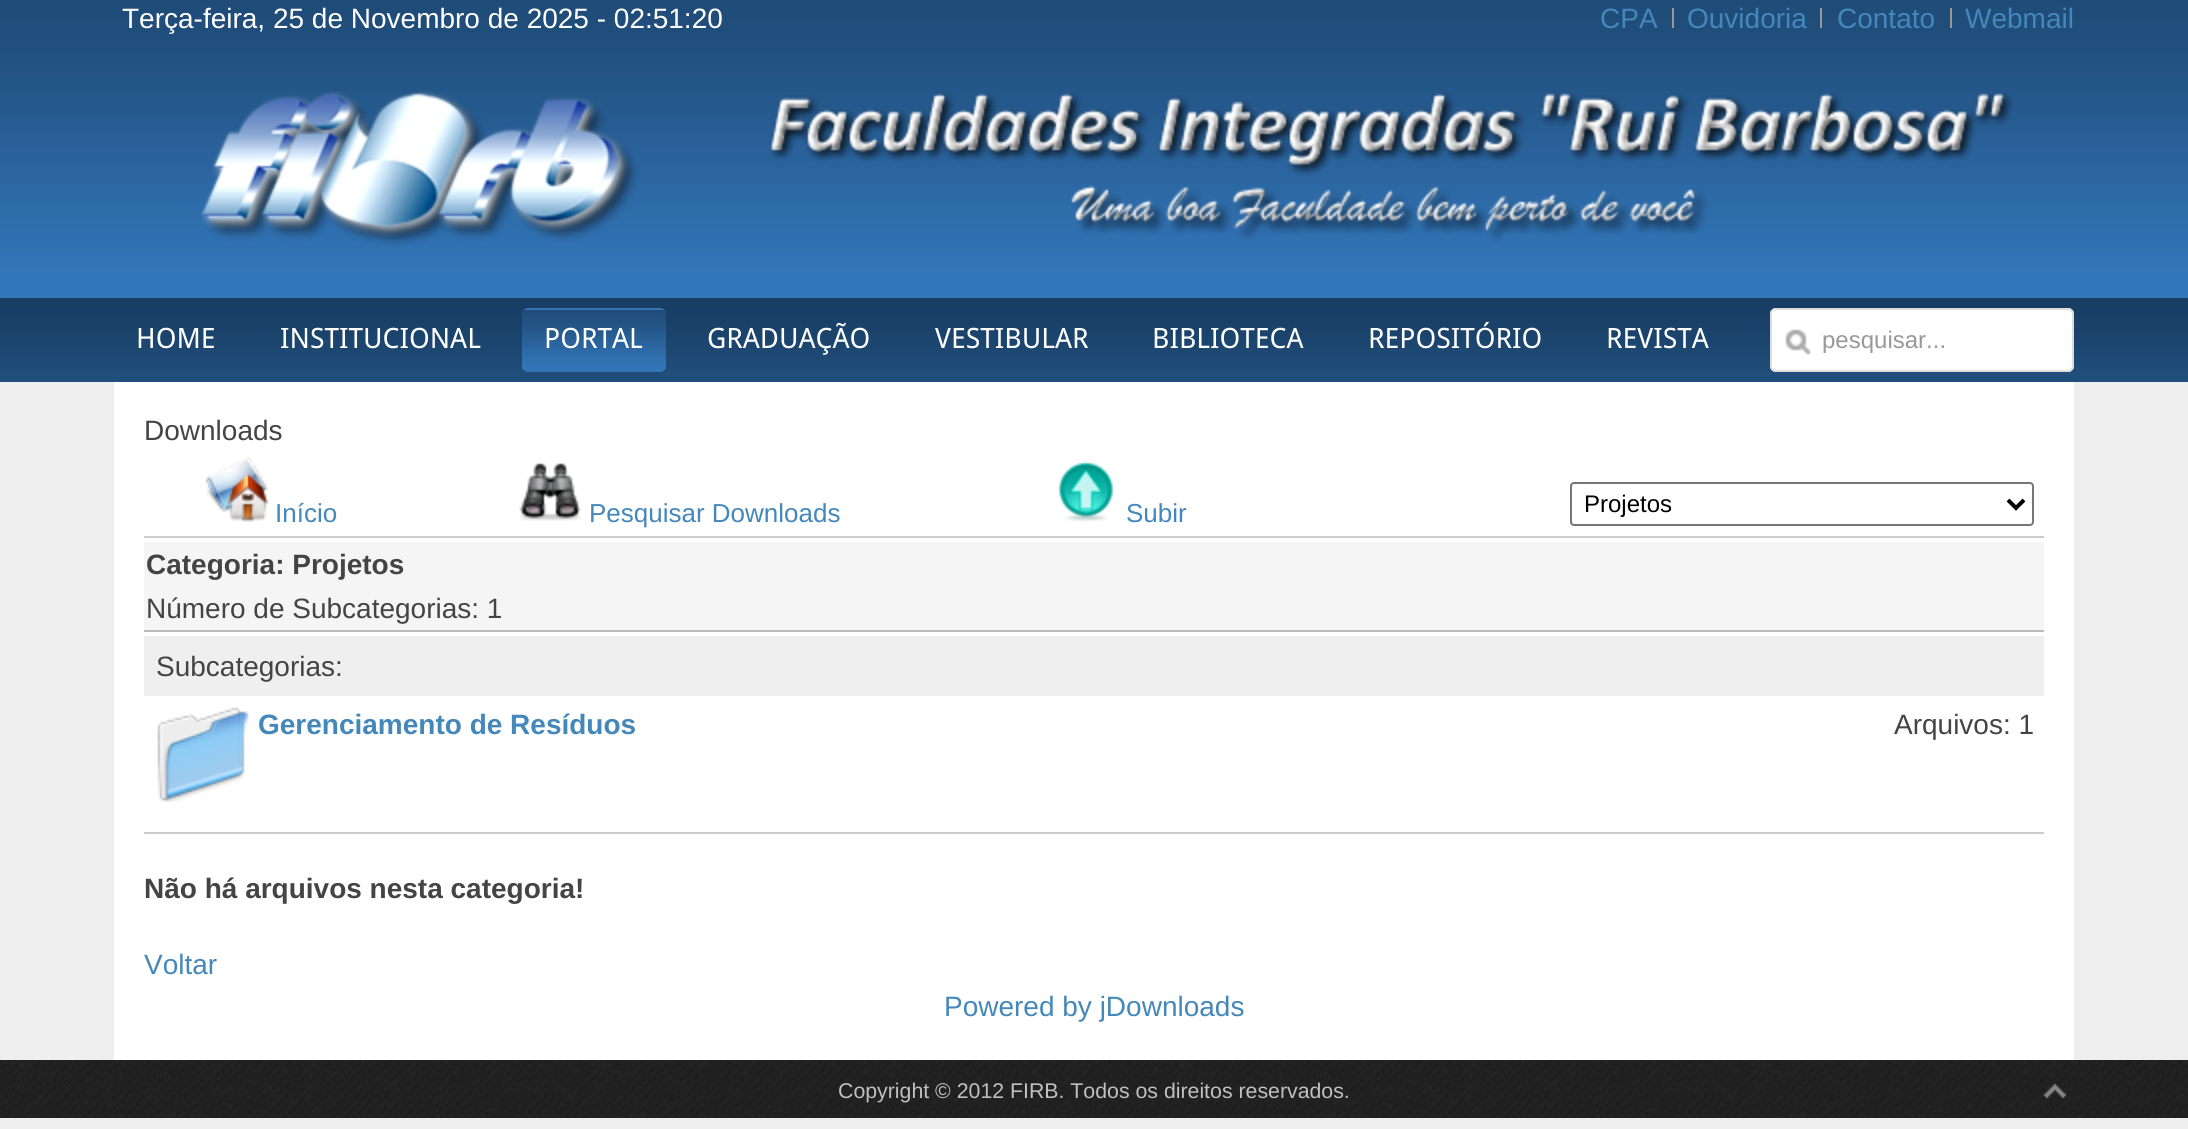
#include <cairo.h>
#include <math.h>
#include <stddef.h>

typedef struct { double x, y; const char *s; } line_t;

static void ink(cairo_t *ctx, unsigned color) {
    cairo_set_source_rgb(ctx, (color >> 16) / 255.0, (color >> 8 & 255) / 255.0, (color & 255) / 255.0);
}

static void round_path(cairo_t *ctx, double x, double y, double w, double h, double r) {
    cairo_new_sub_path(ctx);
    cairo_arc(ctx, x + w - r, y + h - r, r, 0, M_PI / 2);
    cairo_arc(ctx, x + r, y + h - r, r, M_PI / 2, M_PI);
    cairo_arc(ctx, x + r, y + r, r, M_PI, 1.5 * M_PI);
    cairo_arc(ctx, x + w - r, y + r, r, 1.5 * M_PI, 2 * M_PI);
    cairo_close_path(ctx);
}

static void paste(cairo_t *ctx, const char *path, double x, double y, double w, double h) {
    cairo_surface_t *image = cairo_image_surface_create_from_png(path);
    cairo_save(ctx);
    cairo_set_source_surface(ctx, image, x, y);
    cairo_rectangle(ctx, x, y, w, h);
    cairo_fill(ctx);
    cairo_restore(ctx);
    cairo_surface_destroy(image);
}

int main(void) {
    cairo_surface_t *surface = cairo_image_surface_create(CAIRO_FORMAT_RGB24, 2188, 1129);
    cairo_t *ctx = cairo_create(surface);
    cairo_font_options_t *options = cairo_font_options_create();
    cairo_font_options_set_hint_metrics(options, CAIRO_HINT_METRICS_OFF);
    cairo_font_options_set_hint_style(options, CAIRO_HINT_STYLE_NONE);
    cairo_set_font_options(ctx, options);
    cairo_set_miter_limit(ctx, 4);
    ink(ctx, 0xEEEEEE);
    cairo_paint(ctx);
    ink(ctx, 0x3377BB);
    cairo_rectangle(ctx, 0, 268, 2188, 30);
    cairo_fill(ctx);
    paste(ctx, "media/1.png", 0, 0, 2188, 268);
    cairo_select_font_face(ctx, "Liberation Sans", CAIRO_FONT_SLANT_NORMAL, CAIRO_FONT_WEIGHT_NORMAL);
    cairo_set_font_size(ctx, 28);
    ink(ctx, 0xFFFFFF);
    cairo_move_to(ctx, 122, 28);
    cairo_show_text(ctx, "Terça-feira, 25 de Novembro de 2025 - 02:51:20");
    ink(ctx, 0x4488BB);
    cairo_move_to(ctx, 1600, 28);
    cairo_show_text(ctx, "CPA");
    ink(ctx, 0x999999);
    cairo_rectangle(ctx, 1672, 8, 2, 20);
    cairo_fill(ctx);
    ink(ctx, 0x4488BB);
    cairo_move_to(ctx, 1687, 28);
    cairo_show_text(ctx, "Ouvidoria");
    ink(ctx, 0x999999);
    cairo_rectangle(ctx, 1820, 8, 2, 20);
    cairo_fill(ctx);
    ink(ctx, 0x4488BB);
    cairo_move_to(ctx, 1837, 28);
    cairo_show_text(ctx, "Contato");
    ink(ctx, 0x999999);
    cairo_rectangle(ctx, 1950, 8, 2, 20);
    cairo_fill(ctx);
    ink(ctx, 0x4488BB);
    cairo_move_to(ctx, 1965, 28);
    cairo_show_text(ctx, "Webmail");
    paste(ctx, "media/2.png", 201, 91, 1812, 156);
    paste(ctx, "media/3.png", 0, 298, 2188, 84);
    cairo_select_font_face(ctx, "Droid Sans", CAIRO_FONT_SLANT_NORMAL, CAIRO_FONT_WEIGHT_NORMAL);
    ink(ctx, 0xFFFFFF);
    cairo_move_to(ctx, 136, 348);
    cairo_show_text(ctx, "HOME");
    cairo_move_to(ctx, 280, 348);
    cairo_show_text(ctx, "INSTITUCIONAL");
    ink(ctx, 0x3276B9);
    round_path(ctx, 522, 308, 144, 64, 6);
    cairo_fill(ctx);
    paste(ctx, "media/4.png", 522, 310, 144, 60);
    ink(ctx, 0xFFFFFF);
    {
        static const line_t items[] = {
            {544, 348, "PORTAL"},
            {707, 348, "GRADUAÇÃO"},
            {935, 348, "VESTIBULAR"},
            {1152, 348, "BIBLIOTECA"},
            {1368, 348, "REPOSITÓRIO"},
            {1606, 348, "REVISTA"},
        };
        for (size_t i = 0; i < sizeof items / sizeof *items; i++) {
            cairo_move_to(ctx, items[i].x, items[i].y);
            cairo_show_text(ctx, items[i].s);
        }
    }
    round_path(ctx, 1770, 308, 304, 64, 6);
    cairo_fill(ctx);
    paste(ctx, "media/5.png", 1785, 329, 26, 26);
    round_path(ctx, 1771, 309, 302, 62, 5);
    ink(ctx, 0xDDDDDD);
    cairo_stroke(ctx);
    cairo_select_font_face(ctx, "Liberation Sans", CAIRO_FONT_SLANT_NORMAL, CAIRO_FONT_WEIGHT_NORMAL);
    cairo_set_font_size(ctx, 24);
    ink(ctx, 0x999999);
    cairo_move_to(ctx, 1822, 348);
    cairo_show_text(ctx, "pesquisar...");
    ink(ctx, 0xFFFFFF);
    cairo_rectangle(ctx, 114, 382, 1960, 678);
    cairo_fill(ctx);
    cairo_set_font_size(ctx, 28);
    ink(ctx, 0x444444);
    cairo_move_to(ctx, 144, 440);
    cairo_show_text(ctx, "Downloads");
    ink(ctx, 0xCCCCCC);
    cairo_rectangle(ctx, 144, 536, 1900, 2);
    cairo_fill(ctx);
    paste(ctx, "media/6.png", 205, 458, 63, 64);
    cairo_set_font_size(ctx, 26);
    ink(ctx, 0x4488BB);
    cairo_move_to(ctx, 275, 522);
    cairo_show_text(ctx, "Início");
    paste(ctx, "media/7.png", 519, 463, 63, 58);
    cairo_move_to(ctx, 589, 522);
    cairo_show_text(ctx, "Pesquisar Downloads");
    paste(ctx, "media/8.png", 1058, 461, 56, 61);
    cairo_move_to(ctx, 1126, 522);
    cairo_show_text(ctx, "Subir");
    round_path(ctx, 1571, 483, 462, 42, 3);
    ink(ctx, 0x767676);
    cairo_stroke(ctx);
    cairo_new_path(ctx);
    cairo_move_to(ctx, 2008, 500);
    cairo_line_to(ctx, 2016, 508);
    cairo_line_to(ctx, 2024, 500);
    ink(ctx, 0x000000);
    cairo_set_line_width(ctx, 4);
    cairo_stroke(ctx);
    cairo_set_font_size(ctx, 24);
    cairo_move_to(ctx, 1584, 512);
    cairo_show_text(ctx, "Projetos");
    ink(ctx, 0xF5F5F5);
    cairo_rectangle(ctx, 144, 542, 1900, 88);
    cairo_fill(ctx);
    ink(ctx, 0xBBBBBB);
    cairo_rectangle(ctx, 144, 630, 1900, 2);
    cairo_fill(ctx);
    cairo_select_font_face(ctx, "Liberation Sans", CAIRO_FONT_SLANT_NORMAL, CAIRO_FONT_WEIGHT_BOLD);
    cairo_set_font_size(ctx, 28);
    ink(ctx, 0x444444);
    cairo_move_to(ctx, 146, 574);
    cairo_show_text(ctx, "Categoria: Projetos");
    cairo_select_font_face(ctx, "Liberation Sans", CAIRO_FONT_SLANT_NORMAL, CAIRO_FONT_WEIGHT_NORMAL);
    cairo_move_to(ctx, 146, 618);
    cairo_show_text(ctx, "Número de Subcategorias: 1");
    ink(ctx, 0xEFEFEF);
    cairo_rectangle(ctx, 144, 636, 1900, 60);
    cairo_fill(ctx);
    ink(ctx, 0x444444);
    cairo_move_to(ctx, 156, 676);
    cairo_show_text(ctx, "Subcategorias:");
    ink(ctx, 0xCCCCCC);
    cairo_rectangle(ctx, 144, 832, 1900, 2);
    cairo_fill(ctx);
    paste(ctx, "media/9.png", 156, 707, 93, 95);
    cairo_select_font_face(ctx, "Liberation Sans", CAIRO_FONT_SLANT_NORMAL, CAIRO_FONT_WEIGHT_BOLD);
    ink(ctx, 0x4488BB);
    cairo_move_to(ctx, 258, 734);
    cairo_show_text(ctx, "Gerenciamento de Resíduos");
    cairo_select_font_face(ctx, "Liberation Sans", CAIRO_FONT_SLANT_NORMAL, CAIRO_FONT_WEIGHT_NORMAL);
    ink(ctx, 0x444444);
    cairo_move_to(ctx, 1894, 734);
    cairo_show_text(ctx, "Arquivos: 1");
    cairo_select_font_face(ctx, "Liberation Sans", CAIRO_FONT_SLANT_NORMAL, CAIRO_FONT_WEIGHT_BOLD);
    cairo_move_to(ctx, 144, 898);
    cairo_show_text(ctx, "Não há arquivos nesta categoria!");
    cairo_select_font_face(ctx, "Liberation Sans", CAIRO_FONT_SLANT_NORMAL, CAIRO_FONT_WEIGHT_NORMAL);
    ink(ctx, 0x4488BB);
    cairo_move_to(ctx, 144, 974);
    cairo_show_text(ctx, "Voltar");
    cairo_move_to(ctx, 944, 1016);
    cairo_show_text(ctx, "Powered by jDownloads");
    paste(ctx, "media/10.png", 0, 1060, 2188, 58);
    cairo_set_font_size(ctx, 21.3);
    ink(ctx, 0xC0C0C0);
    cairo_move_to(ctx, 838, 1098);
    cairo_show_text(ctx, "Copyright © 2012 FIRB. Todos os direitos reservados.");
    paste(ctx, "media/11.png", 2044, 1084, 22, 14);
    cairo_surface_write_to_png(surface, "image.png");
    cairo_font_options_destroy(options);
    cairo_destroy(ctx);
    cairo_surface_destroy(surface);
    return 0;
}
